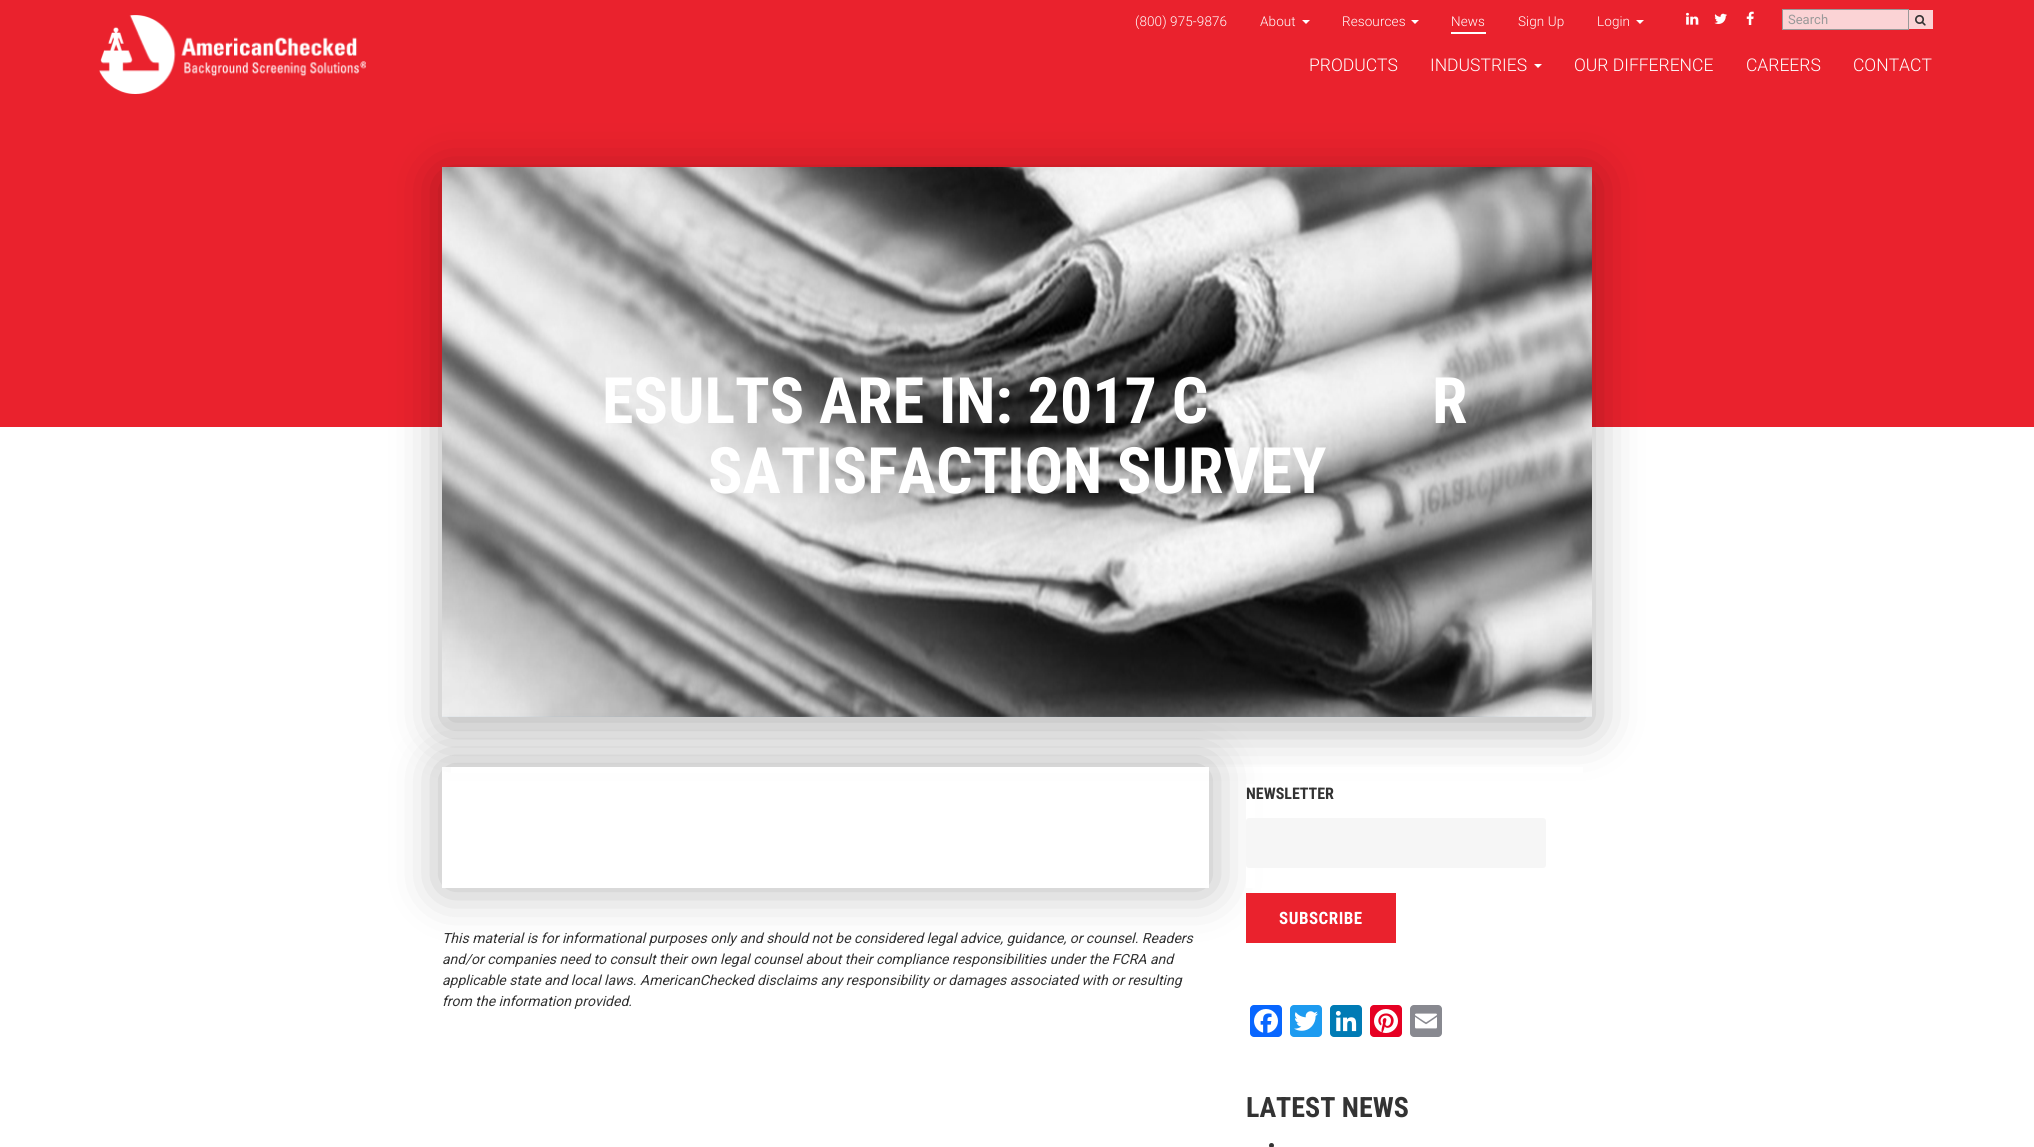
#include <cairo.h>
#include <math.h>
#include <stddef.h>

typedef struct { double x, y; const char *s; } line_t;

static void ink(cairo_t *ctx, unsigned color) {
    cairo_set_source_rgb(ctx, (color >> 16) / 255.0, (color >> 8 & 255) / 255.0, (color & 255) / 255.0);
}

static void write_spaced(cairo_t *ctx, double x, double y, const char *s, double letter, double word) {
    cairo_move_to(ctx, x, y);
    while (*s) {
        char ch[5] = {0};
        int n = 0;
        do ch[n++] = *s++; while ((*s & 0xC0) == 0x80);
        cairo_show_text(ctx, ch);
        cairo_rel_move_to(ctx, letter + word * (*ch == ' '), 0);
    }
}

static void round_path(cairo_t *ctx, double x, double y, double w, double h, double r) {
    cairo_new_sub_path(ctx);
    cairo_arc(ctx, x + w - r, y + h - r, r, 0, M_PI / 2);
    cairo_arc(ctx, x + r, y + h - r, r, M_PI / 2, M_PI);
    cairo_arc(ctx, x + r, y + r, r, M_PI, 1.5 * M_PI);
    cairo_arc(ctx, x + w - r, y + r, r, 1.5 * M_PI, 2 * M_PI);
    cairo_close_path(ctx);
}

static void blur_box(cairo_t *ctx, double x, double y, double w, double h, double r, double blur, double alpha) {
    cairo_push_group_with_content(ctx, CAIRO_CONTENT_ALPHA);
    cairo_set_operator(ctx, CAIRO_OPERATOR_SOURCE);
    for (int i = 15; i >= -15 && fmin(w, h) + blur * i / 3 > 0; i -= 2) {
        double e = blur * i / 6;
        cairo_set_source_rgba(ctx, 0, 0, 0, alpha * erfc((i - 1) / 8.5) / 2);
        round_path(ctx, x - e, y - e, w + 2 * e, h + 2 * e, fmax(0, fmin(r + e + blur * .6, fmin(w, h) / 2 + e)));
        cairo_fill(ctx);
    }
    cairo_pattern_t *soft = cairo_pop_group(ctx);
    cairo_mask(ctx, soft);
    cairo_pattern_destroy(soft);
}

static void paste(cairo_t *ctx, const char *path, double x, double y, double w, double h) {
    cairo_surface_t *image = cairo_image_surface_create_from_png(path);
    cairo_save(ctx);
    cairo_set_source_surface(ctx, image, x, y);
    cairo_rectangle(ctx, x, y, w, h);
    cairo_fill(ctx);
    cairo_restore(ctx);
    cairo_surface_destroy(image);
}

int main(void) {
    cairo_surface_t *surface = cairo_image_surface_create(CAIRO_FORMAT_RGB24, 2034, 1147);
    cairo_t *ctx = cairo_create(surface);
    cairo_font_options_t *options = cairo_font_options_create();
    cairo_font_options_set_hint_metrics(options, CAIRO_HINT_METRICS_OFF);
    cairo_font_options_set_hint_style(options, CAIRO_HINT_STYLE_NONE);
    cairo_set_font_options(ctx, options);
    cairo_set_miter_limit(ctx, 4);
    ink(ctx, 0xFFFFFF);
    cairo_paint(ctx);
    ink(ctx, 0xEA222D);
    cairo_rectangle(ctx, 0, 0, 2034, 427);
    cairo_fill(ctx);
    paste(ctx, "media/1.png", 99, 15, 267, 79);
    cairo_select_font_face(ctx, "Roboto Light", CAIRO_FONT_SLANT_NORMAL, CAIRO_FONT_WEIGHT_NORMAL);
    cairo_set_font_size(ctx, 13.5);
    ink(ctx, 0xFFFFFF);
    write_spaced(ctx, 1135, 26, "(800) 975-9876", 0.1, 0);
    write_spaced(ctx, 1260, 26, "About", 0.1, 0);
    cairo_new_path(ctx);
    cairo_move_to(ctx, 1302, 20);
    cairo_line_to(ctx, 1310, 20);
    cairo_line_to(ctx, 1306, 24);
    cairo_close_path(ctx);
    cairo_fill(ctx);
    write_spaced(ctx, 1342, 26, "Resources", 0.1, 0);
    cairo_new_path(ctx);
    cairo_move_to(ctx, 1411, 20);
    cairo_line_to(ctx, 1419, 20);
    cairo_line_to(ctx, 1415, 24);
    cairo_close_path(ctx);
    cairo_fill(ctx);
    cairo_rectangle(ctx, 1451, 32, 35, 2);
    cairo_fill(ctx);
    {
        static const line_t items[] = {
            {1451, 26, "News"},
            {1518, 26, "Sign Up"},
            {1597, 26, "Login"},
        };
        for (size_t i = 0; i < sizeof items / sizeof *items; i++) {
            write_spaced(ctx, items[i].x, items[i].y, items[i].s, 0.1, 0);
        }
    }
    cairo_new_path(ctx);
    cairo_move_to(ctx, 1636, 20);
    cairo_line_to(ctx, 1644, 20);
    cairo_line_to(ctx, 1640, 24);
    cairo_close_path(ctx);
    cairo_fill(ctx);
    paste(ctx, "media/2.png", 1686, 12, 13, 13);
    paste(ctx, "media/3.png", 1714, 13, 13, 11);
    paste(ctx, "media/4.png", 1746, 11, 8, 14);
    ink(ctx, 0xFBD3D5);
    cairo_rectangle(ctx, 1783, 10, 125, 19);
    cairo_fill(ctx);
    cairo_rectangle(ctx, 1782.5, 9.5, 126, 20);
    ink(ctx, 0x999999);
    cairo_set_line_width(ctx, 1);
    cairo_stroke(ctx);
    cairo_select_font_face(ctx, "Roboto", CAIRO_FONT_SLANT_NORMAL, CAIRO_FONT_WEIGHT_NORMAL);
    cairo_set_font_size(ctx, 13);
    cairo_move_to(ctx, 1788, 24);
    cairo_show_text(ctx, "Search");
    ink(ctx, 0xFBD3D5);
    cairo_rectangle(ctx, 1909, 10, 24, 19);
    cairo_fill(ctx);
    paste(ctx, "media/5.png", 1915, 14, 11, 12);
    cairo_select_font_face(ctx, "Roboto Light", CAIRO_FONT_SLANT_NORMAL, CAIRO_FONT_WEIGHT_NORMAL);
    cairo_set_font_size(ctx, 17.5);
    ink(ctx, 0xFFFFFF);
    cairo_move_to(ctx, 1309, 71);
    cairo_show_text(ctx, "PRODUCTS");
    cairo_move_to(ctx, 1430, 71);
    cairo_show_text(ctx, "INDUSTRIES");
    cairo_new_path(ctx);
    cairo_move_to(ctx, 1534, 64);
    cairo_line_to(ctx, 1542, 64);
    cairo_line_to(ctx, 1538, 68);
    cairo_close_path(ctx);
    cairo_fill(ctx);
    {
        static const line_t items[] = {
            {1574, 71, "OUR DIFFERENCE"},
            {1746, 71, "CAREERS"},
            {1853, 71, "CONTACT"},
        };
        for (size_t i = 0; i < sizeof items / sizeof *items; i++) {
            cairo_move_to(ctx, items[i].x, items[i].y);
            cairo_show_text(ctx, items[i].s);
        }
    }
    ink(ctx, 0x000000);
    blur_box(ctx, 442, 177, 1150, 550, 0, 25, 0.3);
    paste(ctx, "media/6.png", 442, 167, 1150, 550);
    cairo_select_font_face(ctx, "Roboto Condensed", CAIRO_FONT_SLANT_NORMAL, CAIRO_FONT_WEIGHT_BOLD);
    cairo_set_font_size(ctx, 64);
    ink(ctx, 0xFFFFFF);
    {
        static const line_t items[] = {
            {602, 423, "ESULTS ARE IN: 2017 C"},
            {1432, 423, "R"},
            {708, 493, "SATISFACTION SURVEY"},
        };
        for (size_t i = 0; i < sizeof items / sizeof *items; i++) {
            cairo_move_to(ctx, items[i].x, items[i].y);
            cairo_show_text(ctx, items[i].s);
        }
    }
    cairo_rectangle(ctx, 451, 767, 1132, 6);
    cairo_fill(ctx);
    cairo_save(ctx);
    cairo_set_fill_rule(ctx, CAIRO_FILL_RULE_EVEN_ODD);
    cairo_new_path(ctx);
    cairo_move_to(ctx, 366, 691);
    cairo_line_to(ctx, 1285, 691);
    cairo_line_to(ctx, 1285, 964);
    cairo_line_to(ctx, 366, 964);
    cairo_close_path(ctx);
    cairo_move_to(ctx, 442, 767);
    cairo_line_to(ctx, 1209, 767);
    cairo_line_to(ctx, 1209, 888);
    cairo_line_to(ctx, 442, 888);
    cairo_close_path(ctx);
    cairo_clip(ctx);
    ink(ctx, 0x000000);
    blur_box(ctx, 442, 767, 767, 121, 0, 25, 0.3);
    cairo_restore(ctx);
    cairo_select_font_face(ctx, "Roboto", CAIRO_FONT_SLANT_ITALIC, CAIRO_FONT_WEIGHT_NORMAL);
    cairo_set_font_size(ctx, 14);
    ink(ctx, 0x333333);
    {
        static const line_t items[] = {
            {442, 943, "This material is for informational purposes only and should not be considered legal advice, guidance, or counsel. Readers"},
            {442, 964, "and/or companies need to consult their own legal counsel about their compliance responsibilities under the FCRA and"},
            {442, 985, "applicable state and local laws. AmericanChecked disclaims any responsibility or damages associated with or resulting"},
            {442, 1006, "from the information provided."},
        };
        for (size_t i = 0; i < sizeof items / sizeof *items; i++) {
            cairo_move_to(ctx, items[i].x, items[i].y);
            cairo_show_text(ctx, items[i].s);
        }
    }
    ink(ctx, 0xFFFFFF);
    cairo_rectangle(ctx, 1246, 784, 9, 104);
    cairo_fill(ctx);
    cairo_select_font_face(ctx, "Roboto Condensed", CAIRO_FONT_SLANT_NORMAL, CAIRO_FONT_WEIGHT_BOLD);
    cairo_set_font_size(ctx, 16);
    ink(ctx, 0x333333);
    cairo_move_to(ctx, 1246, 799);
    cairo_show_text(ctx, "NEWSLETTER");
    ink(ctx, 0xF6F6F6);
    round_path(ctx, 1246, 818, 300, 50, 3);
    cairo_fill(ctx);
    ink(ctx, 0xEA222D);
    cairo_rectangle(ctx, 1246, 893, 150, 50);
    cairo_fill(ctx);
    cairo_set_font_size(ctx, 17);
    ink(ctx, 0xFFFFFF);
    write_spaced(ctx, 1279, 924, "SUBSCRIBE", 0.5, 0);
    ink(ctx, 0x0866FF);
    round_path(ctx, 1250, 1005, 32, 32, 4);
    cairo_fill(ctx);
    paste(ctx, "media/7.png", 1254, 1009, 24, 24);
    ink(ctx, 0x1D9BF0);
    round_path(ctx, 1290, 1005, 32, 32, 4);
    cairo_fill(ctx);
    paste(ctx, "media/8.png", 1294, 1011, 24, 20);
    ink(ctx, 0x007BB5);
    round_path(ctx, 1330, 1005, 32, 32, 4);
    cairo_fill(ctx);
    paste(ctx, "media/9.png", 1335, 1010, 22, 22);
    ink(ctx, 0xE60023);
    round_path(ctx, 1370, 1005, 32, 32, 4);
    cairo_fill(ctx);
    paste(ctx, "media/10.png", 1374, 1009, 24, 24);
    ink(ctx, 0x888990);
    round_path(ctx, 1410, 1005, 32, 32, 4);
    cairo_fill(ctx);
    paste(ctx, "media/11.png", 1415, 1013, 22, 16);
    cairo_set_font_size(ctx, 28);
    ink(ctx, 0x333333);
    cairo_move_to(ctx, 1246, 1117);
    cairo_show_text(ctx, "LATEST NEWS");
    cairo_new_path(ctx);
    cairo_arc(ctx, 1271.5, 1145.5, 2.5, 0, 2 * M_PI);
    cairo_fill(ctx);
    cairo_surface_write_to_png(surface, "image.png");
    cairo_font_options_destroy(options);
    cairo_destroy(ctx);
    cairo_surface_destroy(surface);
    return 0;
}
